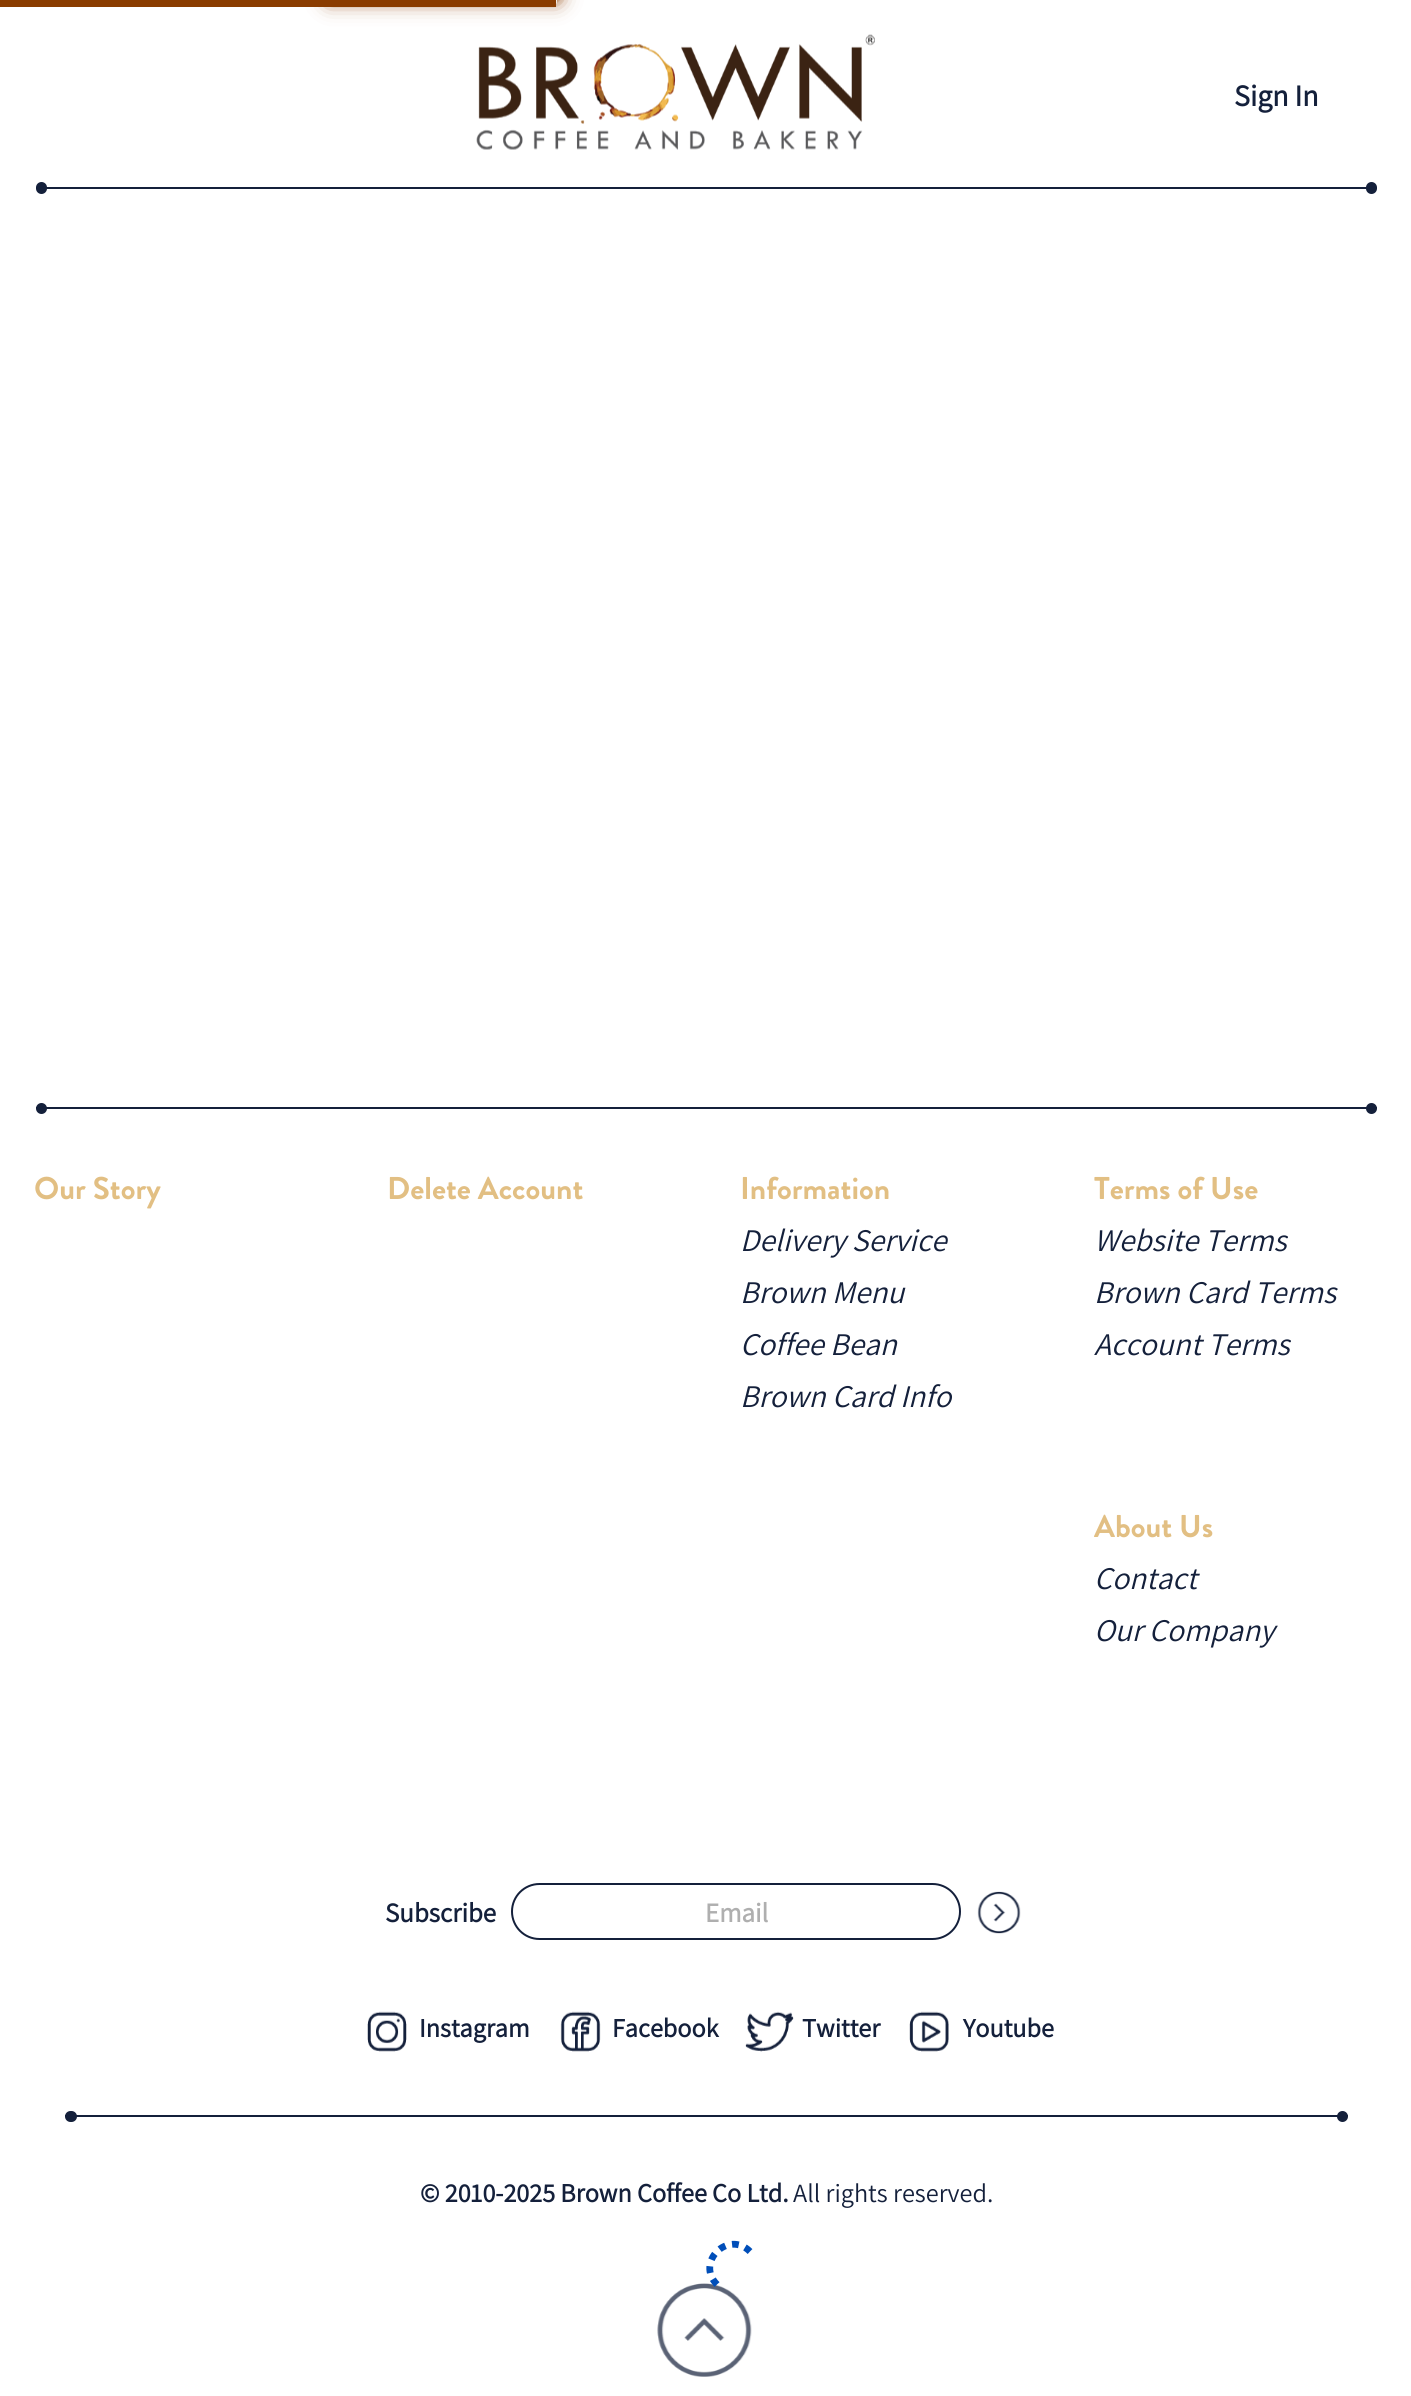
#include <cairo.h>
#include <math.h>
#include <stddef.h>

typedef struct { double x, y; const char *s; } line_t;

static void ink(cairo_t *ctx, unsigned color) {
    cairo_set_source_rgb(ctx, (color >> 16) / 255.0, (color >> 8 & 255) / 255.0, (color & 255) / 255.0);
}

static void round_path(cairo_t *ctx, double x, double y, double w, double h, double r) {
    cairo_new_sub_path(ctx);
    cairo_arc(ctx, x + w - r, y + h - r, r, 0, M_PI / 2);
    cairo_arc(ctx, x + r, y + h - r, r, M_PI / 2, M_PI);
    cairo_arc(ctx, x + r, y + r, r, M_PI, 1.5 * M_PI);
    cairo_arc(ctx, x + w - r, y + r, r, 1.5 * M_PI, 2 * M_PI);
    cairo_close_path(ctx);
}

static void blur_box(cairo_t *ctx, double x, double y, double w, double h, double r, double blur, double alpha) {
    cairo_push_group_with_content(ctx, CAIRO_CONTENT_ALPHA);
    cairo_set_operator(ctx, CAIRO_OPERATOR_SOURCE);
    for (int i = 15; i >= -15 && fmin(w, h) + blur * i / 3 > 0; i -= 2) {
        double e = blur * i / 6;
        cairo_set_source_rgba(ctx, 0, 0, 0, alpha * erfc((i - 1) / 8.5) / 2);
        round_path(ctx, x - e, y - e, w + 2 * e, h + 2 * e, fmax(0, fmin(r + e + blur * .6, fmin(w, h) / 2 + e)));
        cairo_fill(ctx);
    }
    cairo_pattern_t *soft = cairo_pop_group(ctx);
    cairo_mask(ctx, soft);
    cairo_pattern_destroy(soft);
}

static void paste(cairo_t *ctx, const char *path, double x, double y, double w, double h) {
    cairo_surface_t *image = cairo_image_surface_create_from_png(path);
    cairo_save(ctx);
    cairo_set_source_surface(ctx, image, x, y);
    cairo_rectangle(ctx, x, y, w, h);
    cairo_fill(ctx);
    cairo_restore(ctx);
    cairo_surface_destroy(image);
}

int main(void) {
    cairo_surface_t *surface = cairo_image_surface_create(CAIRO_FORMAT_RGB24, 1411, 2396);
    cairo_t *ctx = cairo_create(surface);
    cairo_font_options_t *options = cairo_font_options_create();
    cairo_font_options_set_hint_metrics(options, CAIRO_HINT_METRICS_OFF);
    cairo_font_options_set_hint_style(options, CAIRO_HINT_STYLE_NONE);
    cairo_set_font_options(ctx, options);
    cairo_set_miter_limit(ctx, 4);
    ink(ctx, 0xFFFFFF);
    cairo_paint(ctx);
    ink(ctx, 0x8A3C00);
    cairo_rectangle(ctx, 0, 0, 556, 7);
    cairo_fill(ctx);
    cairo_save(ctx);
    cairo_set_fill_rule(ctx, CAIRO_FILL_RULE_EVEN_ODD);
    cairo_new_path(ctx);
    cairo_move_to(ctx, 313, 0);
    cairo_line_to(ctx, 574, 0);
    cairo_line_to(ctx, 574, 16);
    cairo_line_to(ctx, 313, 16);
    cairo_close_path(ctx);
    cairo_move_to(ctx, 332, -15);
    cairo_line_to(ctx, 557, -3);
    cairo_line_to(ctx, 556.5, 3.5);
    cairo_line_to(ctx, 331.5, -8);
    cairo_close_path(ctx);
    cairo_clip(ctx);
    ink(ctx, 0x8A3C00);
    blur_box(ctx, 331, -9, 225, 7, 0, 5.5, 1);
    cairo_restore(ctx);
    cairo_save(ctx);
    cairo_set_fill_rule(ctx, CAIRO_FILL_RULE_EVEN_ODD);
    cairo_new_path(ctx);
    cairo_move_to(ctx, 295, 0);
    cairo_line_to(ctx, 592, 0);
    cairo_line_to(ctx, 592, 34);
    cairo_line_to(ctx, 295, 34);
    cairo_close_path(ctx);
    cairo_move_to(ctx, 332, -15);
    cairo_line_to(ctx, 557, -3);
    cairo_line_to(ctx, 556.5, 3.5);
    cairo_line_to(ctx, 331.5, -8);
    cairo_close_path(ctx);
    cairo_clip(ctx);
    ink(ctx, 0x8A3C00);
    blur_box(ctx, 331, -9, 225, 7, 0, 11.5, 1);
    cairo_restore(ctx);
    paste(ctx, "media/7.png", 657, 2283, 95, 94);
    cairo_new_path(ctx);
    cairo_move_to(ctx, 717, 2284.5);
    cairo_curve_to(ctx, 695, 2262.5, 728, 2229.5, 750, 2251.5);
    ink(ctx, 0x004EB9);
    cairo_set_line_width(ctx, 6.8);
    cairo_set_dash(ctx, (double[]){6.75, 6.75}, 2, 0);
    cairo_stroke(ctx);
    paste(ctx, "media/1.png", 476, 34, 399, 116);
    cairo_select_font_face(ctx, "Assistant", CAIRO_FONT_SLANT_NORMAL, CAIRO_FONT_WEIGHT_BOLD);
    cairo_set_font_size(ctx, 30);
    ink(ctx, 0x14203B);
    cairo_move_to(ctx, 1234, 106);
    cairo_show_text(ctx, "Sign In");
    round_path(ctx, 36, 182, 11, 12, 5.5);
    cairo_fill(ctx);
    cairo_rectangle(ctx, 36, 187, 1341, 2);
    cairo_fill(ctx);
    round_path(ctx, 1366, 182, 11, 12, 5.5);
    cairo_fill(ctx);
    cairo_arc(ctx, 41.5, 1108.5, 5.5, 0, 2 * M_PI);
    cairo_fill(ctx);
    cairo_rectangle(ctx, 36, 1107, 1341, 2);
    cairo_fill(ctx);
    cairo_arc(ctx, 1371.5, 1108.5, 5.5, 0, 2 * M_PI);
    cairo_fill(ctx);
    cairo_select_font_face(ctx, "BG", CAIRO_FONT_SLANT_NORMAL, CAIRO_FONT_WEIGHT_BOLD);
    cairo_set_font_size(ctx, 31.5);
    ink(ctx, 0xE2BF83);
    {
        static const line_t items[] = {
            {34, 1199, "Our Story"},
            {387, 1199, "Delete Account"},
            {740, 1199, "Information"},
        };
        for (size_t i = 0; i < sizeof items / sizeof *items; i++) {
            cairo_move_to(ctx, items[i].x, items[i].y);
            cairo_show_text(ctx, items[i].s);
        }
    }
    cairo_select_font_face(ctx, "Assistant", CAIRO_FONT_SLANT_ITALIC, CAIRO_FONT_WEIGHT_NORMAL);
    ink(ctx, 0x14203B);
    {
        static const line_t items[] = {
            {740, 1251, "Delivery Service"},
            {740, 1303, "Brown Menu"},
            {740, 1355, "Coffee Bean"},
            {740, 1407, "Brown Card Info"},
        };
        for (size_t i = 0; i < sizeof items / sizeof *items; i++) {
            cairo_move_to(ctx, items[i].x, items[i].y);
            cairo_show_text(ctx, items[i].s);
        }
    }
    cairo_select_font_face(ctx, "BG", CAIRO_FONT_SLANT_NORMAL, CAIRO_FONT_WEIGHT_BOLD);
    ink(ctx, 0xE2BF83);
    cairo_move_to(ctx, 1094, 1199);
    cairo_show_text(ctx, "Terms of Use");
    cairo_select_font_face(ctx, "Assistant", CAIRO_FONT_SLANT_ITALIC, CAIRO_FONT_WEIGHT_NORMAL);
    ink(ctx, 0x14203B);
    {
        static const line_t items[] = {
            {1094, 1251, "Website Terms"},
            {1094, 1303, "Brown Card Terms"},
            {1094, 1355, "Account Terms"},
        };
        for (size_t i = 0; i < sizeof items / sizeof *items; i++) {
            cairo_move_to(ctx, items[i].x, items[i].y);
            cairo_show_text(ctx, items[i].s);
        }
    }
    cairo_select_font_face(ctx, "BG", CAIRO_FONT_SLANT_NORMAL, CAIRO_FONT_WEIGHT_BOLD);
    ink(ctx, 0xE2BF83);
    cairo_move_to(ctx, 1094, 1537);
    cairo_show_text(ctx, "About Us");
    cairo_select_font_face(ctx, "Assistant", CAIRO_FONT_SLANT_ITALIC, CAIRO_FONT_WEIGHT_NORMAL);
    ink(ctx, 0x14203B);
    cairo_move_to(ctx, 1094, 1589);
    cairo_show_text(ctx, "Contact");
    cairo_move_to(ctx, 1094, 1641);
    cairo_show_text(ctx, "Our Company");
    cairo_select_font_face(ctx, "Assistant", CAIRO_FONT_SLANT_NORMAL, CAIRO_FONT_WEIGHT_BOLD);
    cairo_set_font_size(ctx, 27);
    cairo_move_to(ctx, 385, 1922);
    cairo_show_text(ctx, "Subscribe");
    round_path(ctx, 512, 1884, 448, 55, 27.5);
    cairo_set_line_width(ctx, 2);
    cairo_set_dash(ctx, NULL, 0, 0);
    cairo_stroke(ctx);
    ink(ctx, 0xAFAFAF);
    cairo_move_to(ctx, 705, 1922);
    cairo_show_text(ctx, "Email");
    paste(ctx, "media/2.png", 977, 1891, 44, 43);
    paste(ctx, "media/3.png", 367, 2011, 40, 41);
    cairo_set_font_size(ctx, 26.25);
    ink(ctx, 0x14203B);
    cairo_move_to(ctx, 419, 2037);
    cairo_show_text(ctx, "Instagram");
    paste(ctx, "media/4.png", 560, 2011, 41, 41);
    cairo_move_to(ctx, 612, 2037);
    cairo_show_text(ctx, "Facebook");
    paste(ctx, "media/5.png", 745, 2011, 49, 41);
    cairo_move_to(ctx, 802, 2037);
    cairo_show_text(ctx, "Twitter");
    paste(ctx, "media/6.png", 909, 2011, 40, 41);
    cairo_move_to(ctx, 963, 2037);
    cairo_show_text(ctx, "Youtube");
    round_path(ctx, 65, 2111, 12, 11, 5.5);
    cairo_fill(ctx);
    cairo_rectangle(ctx, 65, 2115, 1283, 2);
    cairo_fill(ctx);
    cairo_arc(ctx, 1342.5, 2116.5, 5.5, 0, 2 * M_PI);
    cairo_fill(ctx);
    cairo_move_to(ctx, 420, 2202);
    cairo_show_text(ctx, "© 2010-2025 Brown Coffee Co Ltd.");
    cairo_select_font_face(ctx, "Assistant", CAIRO_FONT_SLANT_NORMAL, CAIRO_FONT_WEIGHT_NORMAL);
    cairo_move_to(ctx, 793, 2202);
    cairo_show_text(ctx, "All rights reserved.");
    cairo_surface_write_to_png(surface, "image.png");
    cairo_font_options_destroy(options);
    cairo_destroy(ctx);
    cairo_surface_destroy(surface);
    return 0;
}
